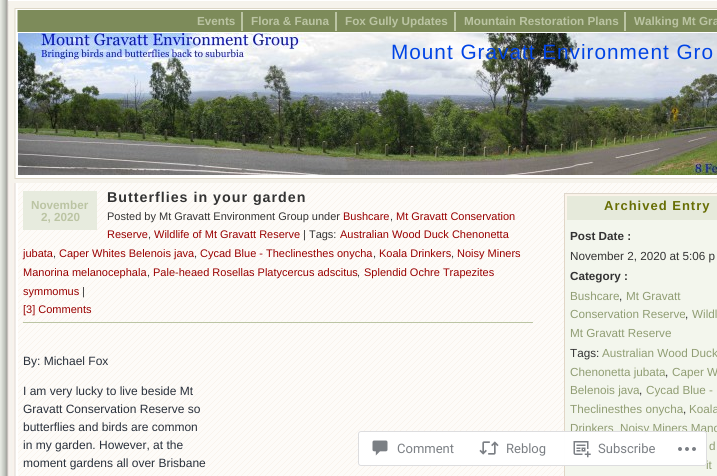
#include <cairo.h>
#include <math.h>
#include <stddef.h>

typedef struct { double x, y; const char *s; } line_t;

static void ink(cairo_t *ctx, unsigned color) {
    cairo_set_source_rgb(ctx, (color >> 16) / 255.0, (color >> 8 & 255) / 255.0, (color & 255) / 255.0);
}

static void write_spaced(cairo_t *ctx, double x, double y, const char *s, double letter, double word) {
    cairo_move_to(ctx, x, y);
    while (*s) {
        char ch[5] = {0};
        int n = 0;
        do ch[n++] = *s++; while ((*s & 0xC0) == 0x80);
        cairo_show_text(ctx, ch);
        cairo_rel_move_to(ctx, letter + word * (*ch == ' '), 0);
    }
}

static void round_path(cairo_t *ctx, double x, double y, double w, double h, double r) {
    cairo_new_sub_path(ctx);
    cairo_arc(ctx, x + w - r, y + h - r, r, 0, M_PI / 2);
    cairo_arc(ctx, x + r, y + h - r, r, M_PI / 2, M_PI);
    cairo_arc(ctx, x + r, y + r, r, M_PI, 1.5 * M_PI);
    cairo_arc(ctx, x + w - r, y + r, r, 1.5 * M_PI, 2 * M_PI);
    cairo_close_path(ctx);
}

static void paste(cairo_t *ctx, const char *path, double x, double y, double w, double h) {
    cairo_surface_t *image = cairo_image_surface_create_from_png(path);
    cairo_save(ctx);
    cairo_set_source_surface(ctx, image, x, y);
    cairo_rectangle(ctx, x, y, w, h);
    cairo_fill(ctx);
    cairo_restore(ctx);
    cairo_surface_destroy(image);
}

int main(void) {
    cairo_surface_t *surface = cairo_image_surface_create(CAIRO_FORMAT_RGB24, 717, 476);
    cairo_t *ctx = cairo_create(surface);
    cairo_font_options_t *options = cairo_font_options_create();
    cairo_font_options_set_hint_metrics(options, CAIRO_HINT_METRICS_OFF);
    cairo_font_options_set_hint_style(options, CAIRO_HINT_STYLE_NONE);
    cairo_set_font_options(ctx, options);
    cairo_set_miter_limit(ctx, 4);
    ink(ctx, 0xFFFFFF);
    cairo_paint(ctx);
    paste(ctx, "media/1.png", 0, 0, 16, 476);
    ink(ctx, 0xFFFFFF);
    cairo_rectangle(ctx, 8, 0, 8, 176);
    cairo_fill(ctx);
    paste(ctx, "media/2.png", 8, 1, 709, 182);
    ink(ctx, 0xBBC4A3);
    cairo_rectangle(ctx, 241, 12, 2, 19);
    cairo_fill(ctx);
    cairo_select_font_face(ctx, "Liberation Sans", CAIRO_FONT_SLANT_NORMAL, CAIRO_FONT_WEIGHT_BOLD);
    cairo_set_font_size(ctx, 11.7);
    cairo_move_to(ctx, 197, 25);
    cairo_show_text(ctx, "Events");
    cairo_rectangle(ctx, 335, 12, 2, 19);
    cairo_fill(ctx);
    cairo_move_to(ctx, 251, 25);
    cairo_show_text(ctx, "Flora & Fauna");
    cairo_rectangle(ctx, 454, 12, 2, 19);
    cairo_fill(ctx);
    cairo_move_to(ctx, 345, 25);
    cairo_show_text(ctx, "Fox Gully Updates");
    cairo_rectangle(ctx, 624, 12, 2, 19);
    cairo_fill(ctx);
    cairo_move_to(ctx, 464, 25);
    cairo_show_text(ctx, "Mountain Restoration Plans");
    cairo_move_to(ctx, 634, 25);
    cairo_show_text(ctx, "Walking Mt Gra");
    paste(ctx, "media/3.png", 18, 33, 699, 142);
    cairo_select_font_face(ctx, "Liberation Sans", CAIRO_FONT_SLANT_NORMAL, CAIRO_FONT_WEIGHT_NORMAL);
    cairo_set_font_size(ctx, 20.75);
    ink(ctx, 0x0044E5);
    write_spaced(ctx, 391, 59, "Mount Gravatt Environment Gro", 1, 0);
    paste(ctx, "media/4.png", 18, 183, 699, 293);
    cairo_select_font_face(ctx, "Liberation Sans", CAIRO_FONT_SLANT_NORMAL, CAIRO_FONT_WEIGHT_BOLD);
    cairo_set_font_size(ctx, 14.25);
    ink(ctx, 0x333333);
    write_spaced(ctx, 107, 202, "Butterflies in your garden", 1, 0);
    cairo_select_font_face(ctx, "Liberation Sans", CAIRO_FONT_SLANT_NORMAL, CAIRO_FONT_WEIGHT_NORMAL);
    cairo_set_font_size(ctx, 11);
    cairo_move_to(ctx, 107, 220);
    cairo_show_text(ctx, "Posted by Mt Gravatt Environment Group under");
    ink(ctx, 0x990000);
    cairo_move_to(ctx, 343, 220);
    cairo_show_text(ctx, "Bushcare");
    ink(ctx, 0x333333);
    cairo_move_to(ctx, 390, 220);
    cairo_show_text(ctx, ",");
    ink(ctx, 0x990000);
    cairo_move_to(ctx, 396, 220);
    cairo_show_text(ctx, "Mt Gravatt Conservation");
    cairo_move_to(ctx, 107, 238);
    cairo_show_text(ctx, "Reserve");
    ink(ctx, 0x333333);
    cairo_move_to(ctx, 148, 238);
    cairo_show_text(ctx, ",");
    ink(ctx, 0x990000);
    cairo_move_to(ctx, 154, 238);
    cairo_show_text(ctx, "Wildlife of Mt Gravatt Reserve");
    ink(ctx, 0x333333);
    cairo_move_to(ctx, 303, 238);
    cairo_show_text(ctx, "| Tags:");
    ink(ctx, 0x990000);
    cairo_move_to(ctx, 340, 238);
    cairo_show_text(ctx, "Australian Wood Duck Chenonetta");
    cairo_move_to(ctx, 23, 257);
    cairo_show_text(ctx, "jubata");
    ink(ctx, 0x333333);
    cairo_move_to(ctx, 53, 257);
    cairo_show_text(ctx, ",");
    ink(ctx, 0x990000);
    cairo_move_to(ctx, 59, 257);
    cairo_show_text(ctx, "Caper Whites Belenois java");
    ink(ctx, 0x333333);
    cairo_move_to(ctx, 194, 257);
    cairo_show_text(ctx, ",");
    ink(ctx, 0x990000);
    {
        static const line_t items[] = {
            {200, 257, "Cycad Blue - Theclinesthes onycha"},
            {379, 257, "Koala Drinkers"},
            {457, 257, "Noisy Miners"},
        };
        for (size_t i = 0; i < sizeof items / sizeof *items; i++) {
            cairo_move_to(ctx, items[i].x, items[i].y);
            cairo_show_text(ctx, items[i].s);
        }
    }
    ink(ctx, 0x333333);
    cairo_move_to(ctx, 373, 257);
    cairo_show_text(ctx, ",");
    cairo_move_to(ctx, 451, 257);
    cairo_show_text(ctx, ",");
    ink(ctx, 0x990000);
    cairo_move_to(ctx, 23, 276);
    cairo_show_text(ctx, "Manorina melanocephala");
    ink(ctx, 0x333333);
    cairo_move_to(ctx, 147, 276);
    cairo_show_text(ctx, ",");
    ink(ctx, 0x990000);
    cairo_move_to(ctx, 153, 276);
    cairo_show_text(ctx, "Pale-heaed Rosellas Platycercus adscitus");
    ink(ctx, 0x333333);
    cairo_move_to(ctx, 357, 276);
    cairo_show_text(ctx, ",");
    ink(ctx, 0x990000);
    cairo_move_to(ctx, 364, 276);
    cairo_show_text(ctx, "Splendid Ochre Trapezites");
    cairo_move_to(ctx, 23, 295);
    cairo_show_text(ctx, "symmomus");
    ink(ctx, 0x333333);
    cairo_move_to(ctx, 82, 295);
    cairo_show_text(ctx, "|");
    ink(ctx, 0x990000);
    cairo_move_to(ctx, 23, 313);
    cairo_show_text(ctx, "[3] Comments");
    ink(ctx, 0xE7EBDE);
    cairo_rectangle(ctx, 23, 191, 74, 39);
    cairo_fill(ctx);
    cairo_select_font_face(ctx, "Liberation Sans", CAIRO_FONT_SLANT_NORMAL, CAIRO_FONT_WEIGHT_BOLD);
    cairo_set_font_size(ctx, 11.7);
    ink(ctx, 0xBBC4A3);
    cairo_move_to(ctx, 31, 209);
    cairo_show_text(ctx, "November");
    cairo_move_to(ctx, 41, 221);
    cairo_show_text(ctx, "2, 2020");
    cairo_rectangle(ctx, 23, 322, 510, 1);
    cairo_fill(ctx);
    cairo_select_font_face(ctx, "Liberation Sans", CAIRO_FONT_SLANT_NORMAL, CAIRO_FONT_WEIGHT_NORMAL);
    cairo_set_font_size(ctx, 12);
    ink(ctx, 0x29303B);
    {
        static const line_t items[] = {
            {23, 365, "By: Michael Fox"},
            {23, 395, "I am very lucky to live beside Mt"},
            {23, 413, "Gravatt Conservation Reserve so"},
            {23, 431, "butterflies and birds are common"},
            {23, 449, "in my garden. However, at the"},
            {23, 467, "moment gardens all over Brisbane"},
        };
        for (size_t i = 0; i < sizeof items / sizeof *items; i++) {
            cairo_move_to(ctx, items[i].x, items[i].y);
            cairo_show_text(ctx, items[i].s);
        }
    }
    paste(ctx, "media/5.png", 564, 193, 153, 27);
    cairo_select_font_face(ctx, "Liberation Sans", CAIRO_FONT_SLANT_NORMAL, CAIRO_FONT_WEIGHT_BOLD);
    cairo_set_font_size(ctx, 13);
    ink(ctx, 0x676E04);
    write_spaced(ctx, 604, 210, "Archived Entry", 1, 0);
    ink(ctx, 0xF3F6ED);
    cairo_rectangle(ctx, 565, 220, 152, 256);
    cairo_fill(ctx);
    ink(ctx, 0xE1D6C6);
    cairo_rectangle(ctx, 564, 220, 1, 256);
    cairo_fill(ctx);
    cairo_set_font_size(ctx, 11.7);
    ink(ctx, 0x333333);
    cairo_move_to(ctx, 570, 240);
    cairo_show_text(ctx, "Post Date :");
    cairo_select_font_face(ctx, "Liberation Sans", CAIRO_FONT_SLANT_NORMAL, CAIRO_FONT_WEIGHT_NORMAL);
    cairo_move_to(ctx, 570, 260);
    cairo_show_text(ctx, "November 2, 2020 at 5:06 p");
    cairo_select_font_face(ctx, "Liberation Sans", CAIRO_FONT_SLANT_NORMAL, CAIRO_FONT_WEIGHT_BOLD);
    cairo_move_to(ctx, 570, 280);
    cairo_show_text(ctx, "Category :");
    cairo_select_font_face(ctx, "Liberation Sans", CAIRO_FONT_SLANT_NORMAL, CAIRO_FONT_WEIGHT_NORMAL);
    ink(ctx, 0x909D73);
    cairo_move_to(ctx, 570, 300);
    cairo_show_text(ctx, "Bushcare");
    ink(ctx, 0x333333);
    cairo_move_to(ctx, 619, 300);
    cairo_show_text(ctx, ",");
    ink(ctx, 0x909D73);
    cairo_move_to(ctx, 626, 300);
    cairo_show_text(ctx, "Mt Gravatt");
    cairo_move_to(ctx, 570, 318);
    cairo_show_text(ctx, "Conservation Reserve");
    ink(ctx, 0x333333);
    cairo_move_to(ctx, 685, 318);
    cairo_show_text(ctx, ",");
    ink(ctx, 0x909D73);
    cairo_move_to(ctx, 692, 318);
    cairo_show_text(ctx, "Wildl");
    cairo_move_to(ctx, 570, 337);
    cairo_show_text(ctx, "Mt Gravatt Reserve");
    ink(ctx, 0x333333);
    cairo_move_to(ctx, 570, 357);
    cairo_show_text(ctx, "Tags:");
    ink(ctx, 0x909D73);
    cairo_move_to(ctx, 602, 357);
    cairo_show_text(ctx, "Australian Wood Duck");
    cairo_move_to(ctx, 570, 376);
    cairo_show_text(ctx, "Chenonetta jubata");
    ink(ctx, 0x333333);
    cairo_move_to(ctx, 665, 376);
    cairo_show_text(ctx, ",");
    ink(ctx, 0x909D73);
    cairo_move_to(ctx, 672, 376);
    cairo_show_text(ctx, "Caper W");
    cairo_move_to(ctx, 570, 394);
    cairo_show_text(ctx, "Belenois java");
    ink(ctx, 0x333333);
    cairo_move_to(ctx, 639, 394);
    cairo_show_text(ctx, ",");
    ink(ctx, 0x909D73);
    cairo_move_to(ctx, 646, 394);
    cairo_show_text(ctx, "Cycad Blue -");
    cairo_move_to(ctx, 570, 413);
    cairo_show_text(ctx, "Theclinesthes onycha");
    ink(ctx, 0x333333);
    cairo_move_to(ctx, 683, 413);
    cairo_show_text(ctx, ",");
    ink(ctx, 0x909D73);
    {
        static const line_t items[] = {
            {689, 413, "Koala"},
            {570, 432, "Drinkers"},
            {620, 432, "Noisy Miners Mano"},
            {709, 450, "d"},
            {706, 469, "it"},
        };
        for (size_t i = 0; i < sizeof items / sizeof *items; i++) {
            cairo_move_to(ctx, items[i].x, items[i].y);
            cairo_show_text(ctx, items[i].s);
        }
    }
    cairo_set_source_rgba(ctx, 1, 1, 1, 0.98);
    round_path(ctx, 358, 431, 349, 35, 3);
    cairo_fill(ctx);
    round_path(ctx, 358.5, 431.5, 348, 34, 2.5);
    cairo_set_source_rgba(ctx, 0.863, 0.863, 0.871, 0.98);
    cairo_set_line_width(ctx, 1);
    cairo_stroke(ctx);
    paste(ctx, "media/6.png", 372, 440, 16, 16);
    cairo_select_font_face(ctx, "Roboto", CAIRO_FONT_SLANT_NORMAL, CAIRO_FONT_WEIGHT_NORMAL);
    cairo_set_font_size(ctx, 13);
    ink(ctx, 0x7B7F84);
    cairo_move_to(ctx, 397, 453);
    cairo_show_text(ctx, "Comment");
    paste(ctx, "media/7.png", 479, 441, 20, 14);
    cairo_move_to(ctx, 506, 453);
    cairo_show_text(ctx, "Reblog");
    paste(ctx, "media/8.png", 573, 441, 18, 17);
    cairo_move_to(ctx, 598, 453);
    cairo_show_text(ctx, "Subscribe");
    paste(ctx, "media/9.png", 678, 447, 18, 4);
    cairo_surface_write_to_png(surface, "image.png");
    cairo_font_options_destroy(options);
    cairo_destroy(ctx);
    cairo_surface_destroy(surface);
    return 0;
}
